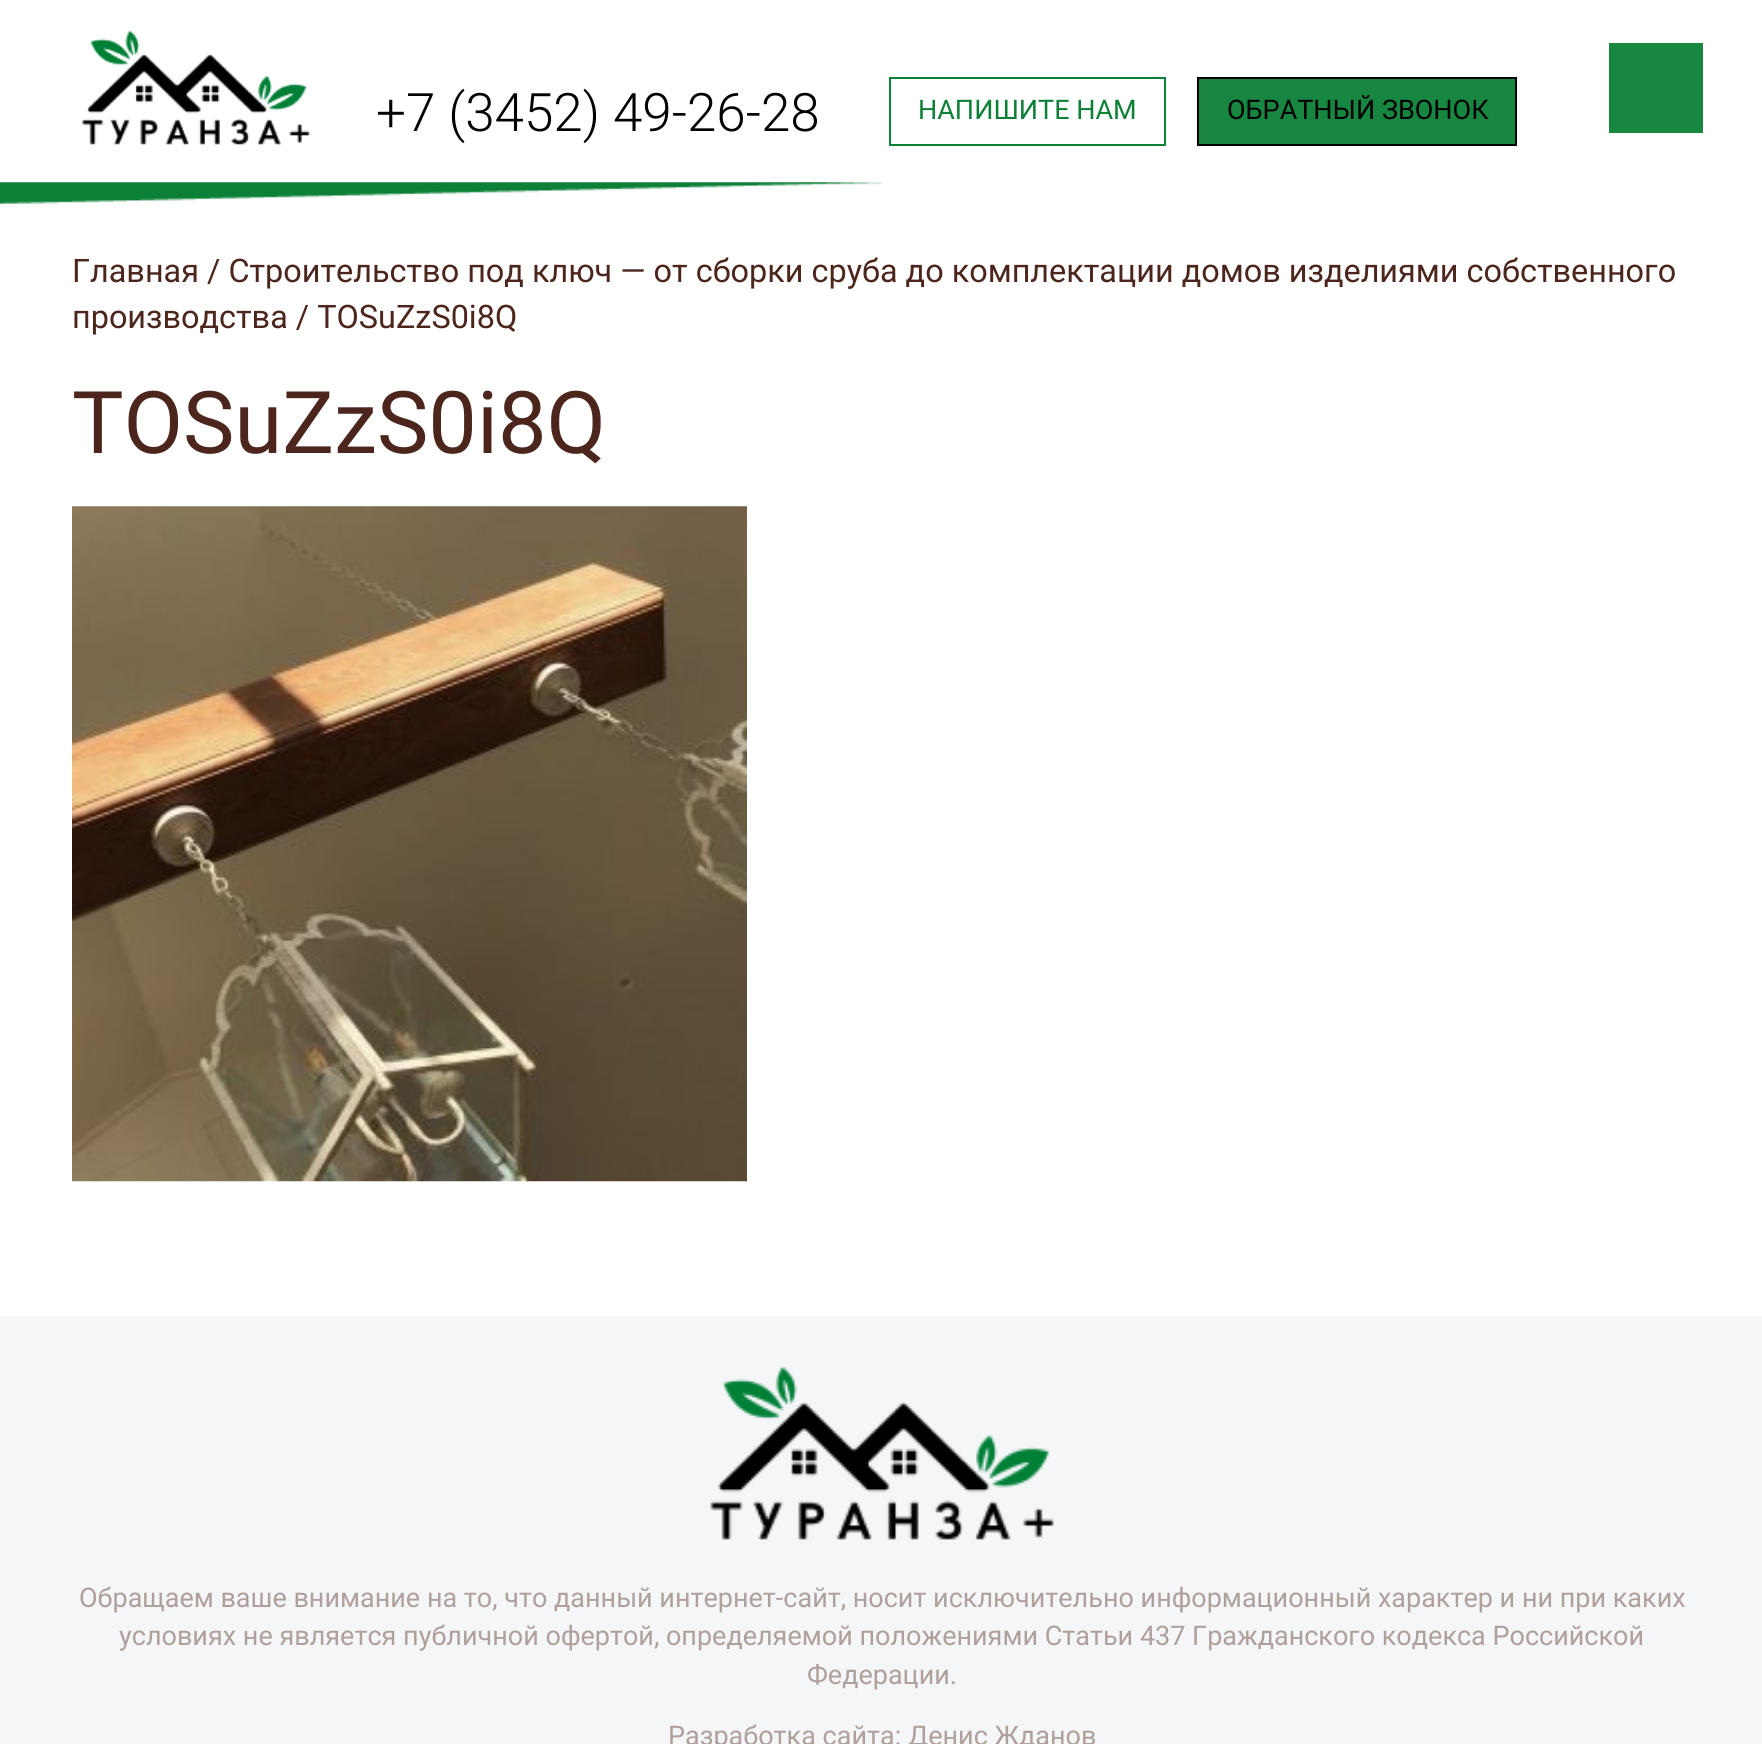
#include <cairo.h>
#include <math.h>
#include <stddef.h>

typedef struct { double x, y; const char *s; } line_t;

static void ink(cairo_t *ctx, unsigned color) {
    cairo_set_source_rgb(ctx, (color >> 16) / 255.0, (color >> 8 & 255) / 255.0, (color & 255) / 255.0);
}

static void paste(cairo_t *ctx, const char *path, double x, double y, double w, double h) {
    cairo_surface_t *image = cairo_image_surface_create_from_png(path);
    cairo_save(ctx);
    cairo_set_source_surface(ctx, image, x, y);
    cairo_rectangle(ctx, x, y, w, h);
    cairo_fill(ctx);
    cairo_restore(ctx);
    cairo_surface_destroy(image);
}

int main(void) {
    cairo_surface_t *surface = cairo_image_surface_create(CAIRO_FORMAT_RGB24, 1762, 1744);
    cairo_t *ctx = cairo_create(surface);
    cairo_font_options_t *options = cairo_font_options_create();
    cairo_font_options_set_hint_metrics(options, CAIRO_HINT_METRICS_OFF);
    cairo_font_options_set_hint_style(options, CAIRO_HINT_STYLE_NONE);
    cairo_set_font_options(ctx, options);
    cairo_set_miter_limit(ctx, 4);
    ink(ctx, 0xFFFFFF);
    cairo_paint(ctx);
    paste(ctx, "media/1.png", 82, 30, 228, 115);
    cairo_select_font_face(ctx, "Roboto Light", CAIRO_FONT_SLANT_NORMAL, CAIRO_FONT_WEIGHT_NORMAL);
    cairo_set_font_size(ctx, 53);
    ink(ctx, 0x000000);
    cairo_move_to(ctx, 376, 131);
    cairo_show_text(ctx, "+7 (3452) 49-26-28");
    cairo_rectangle(ctx, 890, 78, 275, 67);
    ink(ctx, 0x0D8037);
    cairo_stroke(ctx);
    cairo_select_font_face(ctx, "Roboto", CAIRO_FONT_SLANT_NORMAL, CAIRO_FONT_WEIGHT_NORMAL);
    cairo_set_font_size(ctx, 27);
    cairo_move_to(ctx, 918, 119);
    cairo_show_text(ctx, "НАПИШИТЕ НАМ");
    ink(ctx, 0x178640);
    cairo_rectangle(ctx, 1198, 78, 318, 67);
    cairo_fill_preserve(ctx);
    ink(ctx, 0x000000);
    cairo_stroke(ctx);
    cairo_move_to(ctx, 1227, 119);
    cairo_show_text(ctx, "ОБРАТНЫЙ ЗВОНОК");
    ink(ctx, 0x178640);
    cairo_rectangle(ctx, 1609, 43, 94, 90);
    cairo_fill(ctx);
    paste(ctx, "media/2.png", 0, 182, 882, 22);
    cairo_set_font_size(ctx, 32.4);
    ink(ctx, 0x4C261C);
    cairo_move_to(ctx, 72, 282);
    cairo_show_text(ctx, "Главная / Строительство под ключ — от сборки сруба до комплектации домов изделиями собственного");
    cairo_move_to(ctx, 72, 328);
    cairo_show_text(ctx, "производства / TOSuZzS0i8Q");
    cairo_set_font_size(ctx, 86.5);
    cairo_move_to(ctx, 72, 453);
    cairo_show_text(ctx, "TOSuZzS0i8Q");
    paste(ctx, "media/3.png", 72, 506, 675, 676);
    ink(ctx, 0xF4F6F8);
    cairo_rectangle(ctx, 0, 1316, 1762, 428);
    cairo_fill(ctx);
    paste(ctx, "media/4.png", 710, 1365, 344, 175);
    cairo_set_font_size(ctx, 27);
    ink(ctx, 0xB0A09B);
    {
        static const line_t items[] = {
            {79, 1607, "Обращаем ваше внимание на то, что данный интернет-сайт, носит исключительно информационный характер и ни при каких"},
            {119, 1645, "условиях не является публичной офертой, определяемой положениями Статьи 437 Гражданского кодекса Российской"},
            {807, 1684, "Федерации."},
            {668, 1745, "Разработка сайта: Денис Жданов"},
        };
        for (size_t i = 0; i < sizeof items / sizeof *items; i++) {
            cairo_move_to(ctx, items[i].x, items[i].y);
            cairo_show_text(ctx, items[i].s);
        }
    }
    cairo_surface_write_to_png(surface, "image.png");
    cairo_font_options_destroy(options);
    cairo_destroy(ctx);
    cairo_surface_destroy(surface);
    return 0;
}
